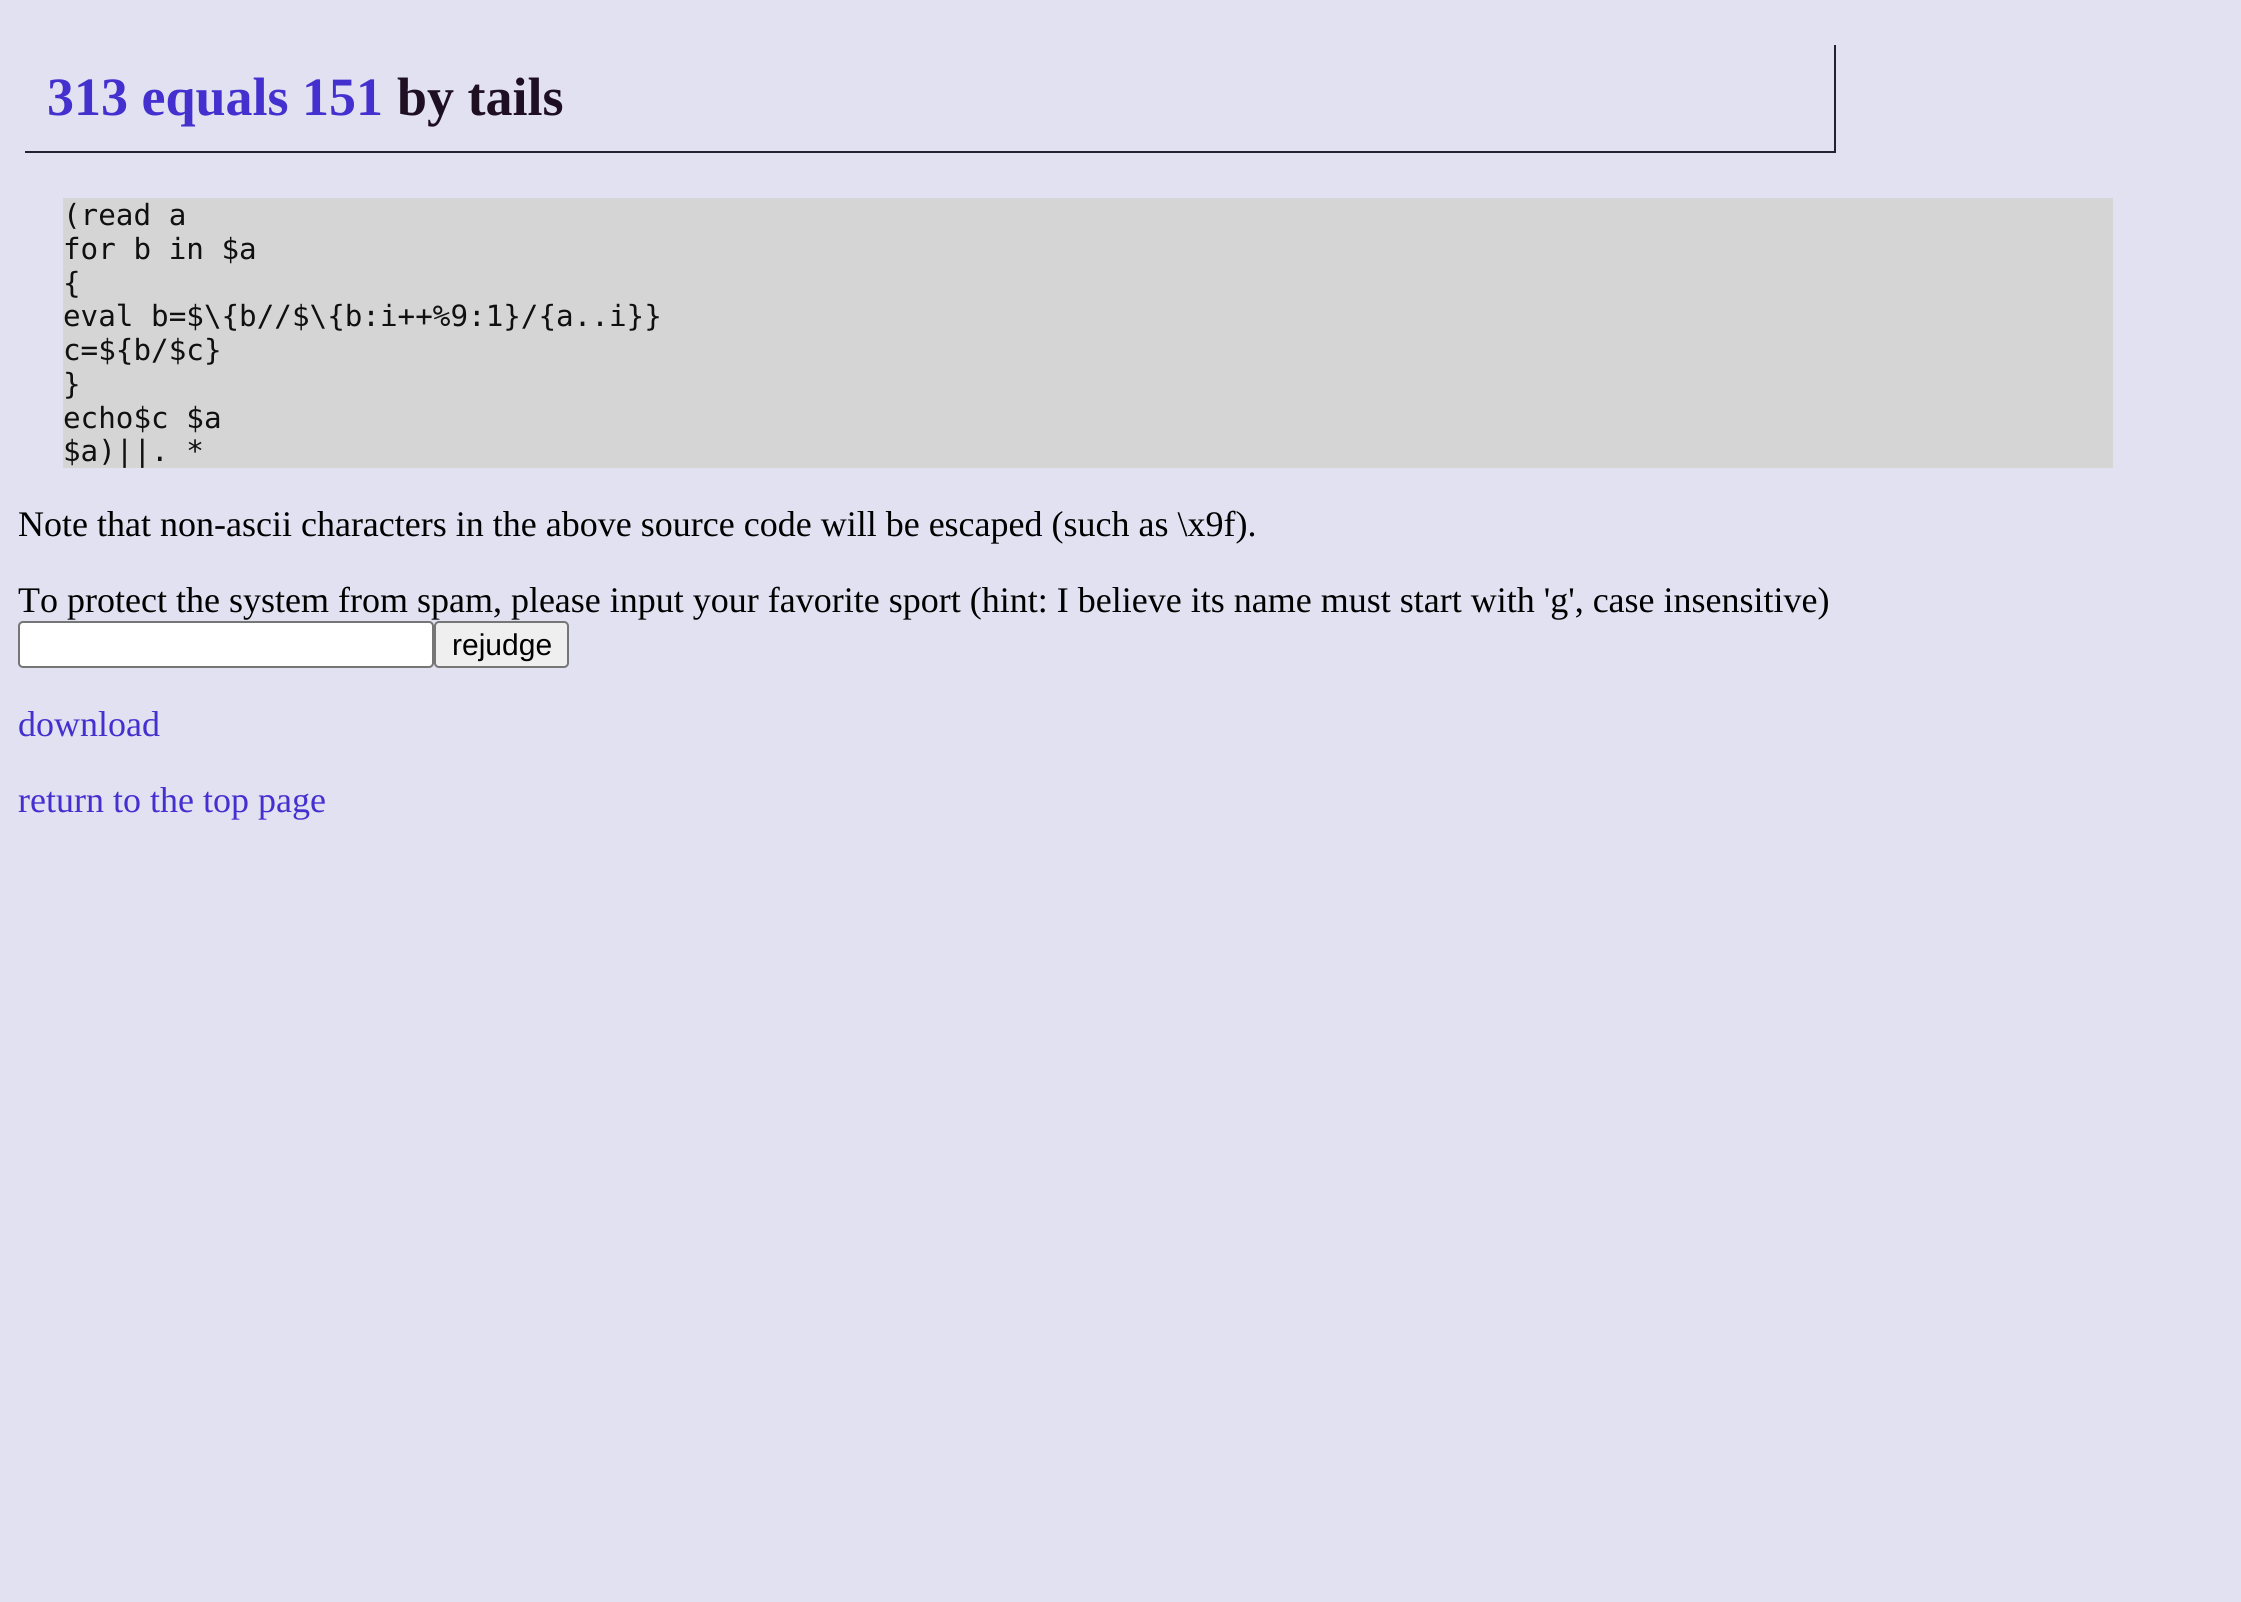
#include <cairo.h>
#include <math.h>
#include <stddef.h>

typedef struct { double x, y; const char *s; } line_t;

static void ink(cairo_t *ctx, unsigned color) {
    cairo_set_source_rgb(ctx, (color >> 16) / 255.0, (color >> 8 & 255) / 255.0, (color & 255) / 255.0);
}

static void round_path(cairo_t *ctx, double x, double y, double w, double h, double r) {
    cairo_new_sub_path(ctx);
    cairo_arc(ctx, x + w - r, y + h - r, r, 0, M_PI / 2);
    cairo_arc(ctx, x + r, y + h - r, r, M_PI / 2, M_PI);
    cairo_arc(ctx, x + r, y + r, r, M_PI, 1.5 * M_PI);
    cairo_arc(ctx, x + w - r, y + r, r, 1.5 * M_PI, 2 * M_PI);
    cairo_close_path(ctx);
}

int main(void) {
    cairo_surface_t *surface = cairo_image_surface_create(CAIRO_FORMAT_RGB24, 2241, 1602);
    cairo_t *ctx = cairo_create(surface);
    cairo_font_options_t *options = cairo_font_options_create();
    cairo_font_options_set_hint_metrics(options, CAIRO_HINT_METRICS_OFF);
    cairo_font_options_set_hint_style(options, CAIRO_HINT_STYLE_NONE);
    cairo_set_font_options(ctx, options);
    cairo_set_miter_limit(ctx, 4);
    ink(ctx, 0xE1E1F1);
    cairo_paint(ctx);
    ink(ctx, 0x222233);
    cairo_rectangle(ctx, 1834, 45, 2, 108);
    cairo_fill(ctx);
    cairo_rectangle(ctx, 25, 151, 1811, 2);
    cairo_fill(ctx);
    cairo_select_font_face(ctx, "Liberation Serif", CAIRO_FONT_SLANT_NORMAL, CAIRO_FONT_WEIGHT_BOLD);
    cairo_set_font_size(ctx, 54);
    ink(ctx, 0x4430CF);
    cairo_move_to(ctx, 47, 115);
    cairo_show_text(ctx, "313 equals 151");
    ink(ctx, 0x1F0F23);
    cairo_move_to(ctx, 397, 115);
    cairo_show_text(ctx, "by tails");
    ink(ctx, 0xD5D5D5);
    cairo_rectangle(ctx, 63, 198, 2050, 270);
    cairo_fill(ctx);
    cairo_select_font_face(ctx, "DejaVu Sans Mono", CAIRO_FONT_SLANT_NORMAL, CAIRO_FONT_WEIGHT_NORMAL);
    cairo_set_font_size(ctx, 29.25);
    ink(ctx, 0x101010);
    {
        static const line_t items[] = {
            {63, 225, "(read a"},
            {63, 259, "for b in $a"},
            {63, 293, "{"},
            {63, 326, "eval b=$\\{b//$\\{b:i++%9:1}/{a..i}}"},
            {63, 360, "c=${b/$c}"},
            {63, 394, "}"},
            {63, 428, "echo$c $a"},
            {63, 461, "$a)||. *"},
        };
        for (size_t i = 0; i < sizeof items / sizeof *items; i++) {
            cairo_move_to(ctx, items[i].x, items[i].y);
            cairo_show_text(ctx, items[i].s);
        }
    }
    cairo_select_font_face(ctx, "Liberation Serif", CAIRO_FONT_SLANT_NORMAL, CAIRO_FONT_WEIGHT_NORMAL);
    cairo_set_font_size(ctx, 36);
    ink(ctx, 0x000000);
    cairo_move_to(ctx, 18, 536);
    cairo_show_text(ctx, "Note that non-ascii characters in the above source code will be escaped (such as \\x9f).");
    cairo_move_to(ctx, 18, 612);
    cairo_show_text(ctx, "To protect the system from spam, please input your favorite sport (hint: I believe its name must start with 'g', case insensitive)");
    ink(ctx, 0xFFFFFF);
    round_path(ctx, 19, 622, 414, 45, 4);
    cairo_fill_preserve(ctx);
    ink(ctx, 0x767676);
    cairo_stroke(ctx);
    ink(ctx, 0xEFEFEF);
    round_path(ctx, 435, 622, 133, 45, 4);
    cairo_fill_preserve(ctx);
    ink(ctx, 0x767676);
    cairo_stroke(ctx);
    cairo_select_font_face(ctx, "Liberation Sans", CAIRO_FONT_SLANT_NORMAL, CAIRO_FONT_WEIGHT_NORMAL);
    cairo_set_font_size(ctx, 30);
    ink(ctx, 0x000000);
    cairo_move_to(ctx, 452, 655);
    cairo_show_text(ctx, "rejudge");
    cairo_select_font_face(ctx, "Liberation Serif", CAIRO_FONT_SLANT_NORMAL, CAIRO_FONT_WEIGHT_NORMAL);
    cairo_set_font_size(ctx, 36);
    ink(ctx, 0x4430CF);
    cairo_move_to(ctx, 18, 736);
    cairo_show_text(ctx, "download");
    cairo_move_to(ctx, 18, 812);
    cairo_show_text(ctx, "return to the top page");
    cairo_surface_write_to_png(surface, "image.png");
    cairo_font_options_destroy(options);
    cairo_destroy(ctx);
    cairo_surface_destroy(surface);
    return 0;
}
